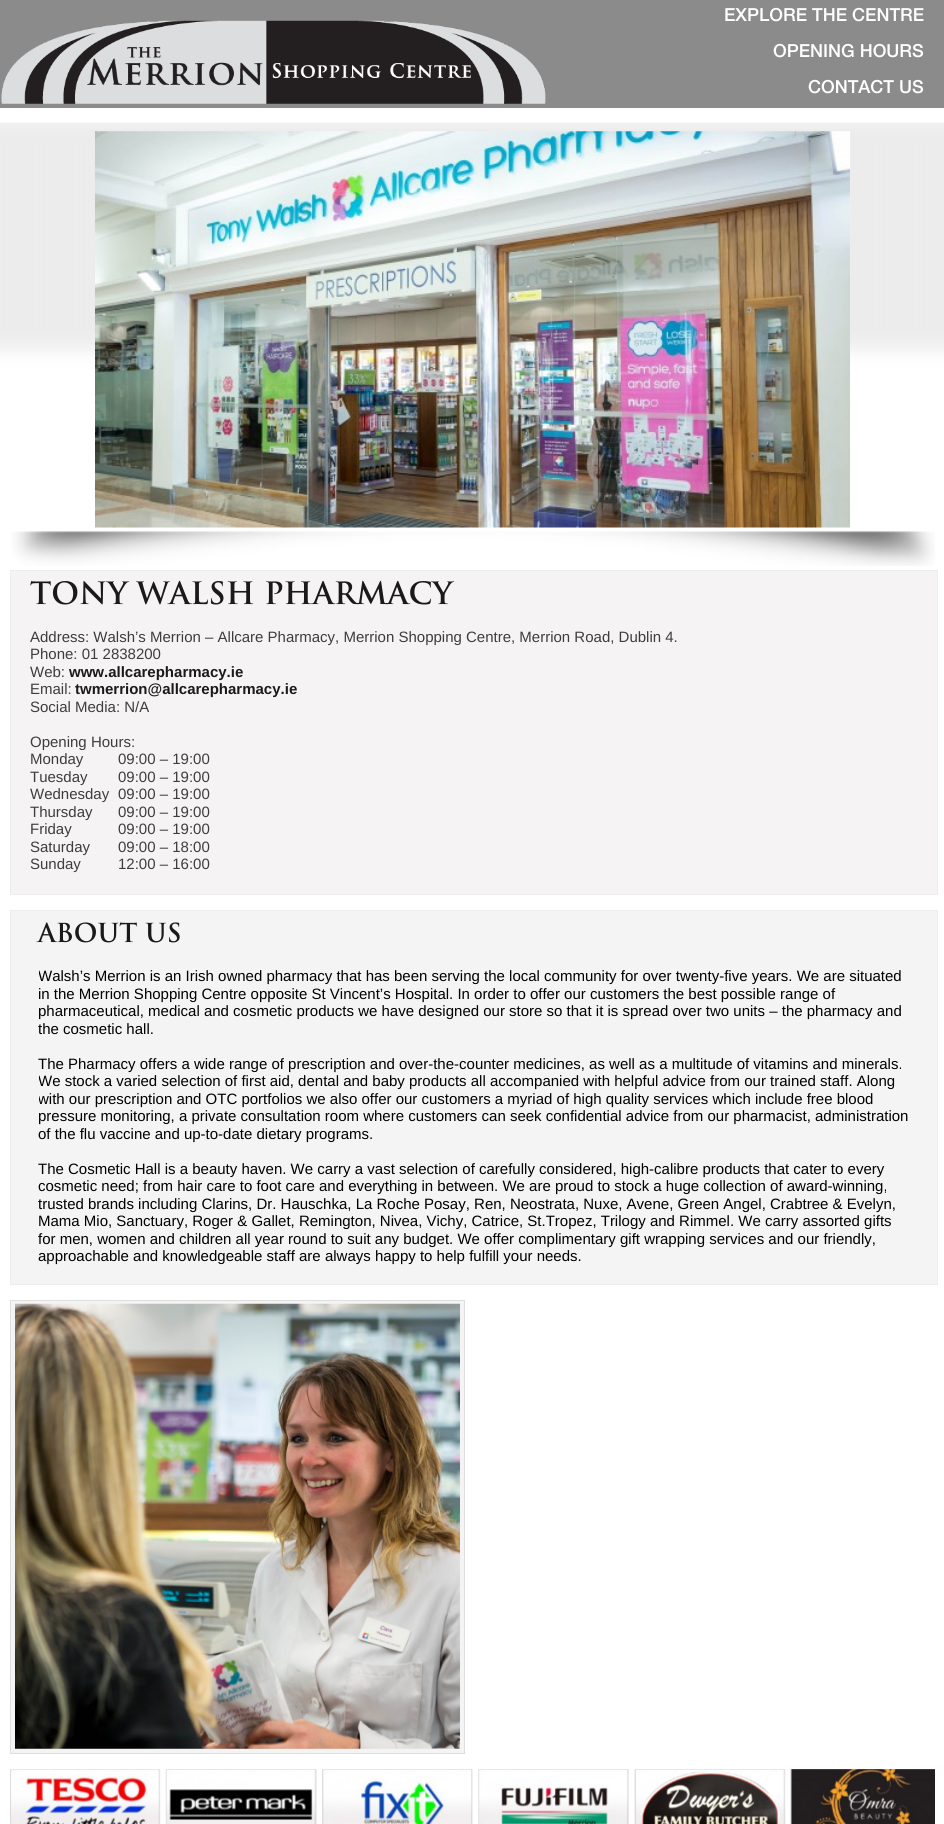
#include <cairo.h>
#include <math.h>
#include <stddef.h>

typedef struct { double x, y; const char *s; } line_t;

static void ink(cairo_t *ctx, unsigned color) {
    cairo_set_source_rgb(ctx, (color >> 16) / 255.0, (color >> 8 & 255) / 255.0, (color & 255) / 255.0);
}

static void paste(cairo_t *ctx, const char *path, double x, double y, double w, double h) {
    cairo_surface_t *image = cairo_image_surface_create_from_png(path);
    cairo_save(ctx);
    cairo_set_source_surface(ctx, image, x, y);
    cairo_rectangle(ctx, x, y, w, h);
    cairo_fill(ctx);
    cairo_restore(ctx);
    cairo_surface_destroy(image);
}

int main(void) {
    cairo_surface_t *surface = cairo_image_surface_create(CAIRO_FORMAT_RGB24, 944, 1824);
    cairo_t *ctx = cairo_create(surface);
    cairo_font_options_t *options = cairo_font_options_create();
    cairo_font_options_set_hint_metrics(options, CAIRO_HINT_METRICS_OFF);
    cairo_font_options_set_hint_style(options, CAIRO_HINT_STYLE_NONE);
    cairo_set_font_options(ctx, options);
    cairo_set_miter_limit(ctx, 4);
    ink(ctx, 0xFFFFFF);
    cairo_paint(ctx);
    paste(ctx, "media/1.png", 0, 0, 944, 108);
    paste(ctx, "media/2.png", 1, 20, 545, 84);
    cairo_select_font_face(ctx, "Helvetica Neue Medium", CAIRO_FONT_SLANT_NORMAL, CAIRO_FONT_WEIGHT_NORMAL);
    cairo_set_font_size(ctx, 18);
    ink(ctx, 0xFFFFFF);
    {
        static const line_t items[] = {
            {724, 21, "EXPLORE THE CENTRE"},
            {773, 57, "OPENING HOURS"},
            {808, 93, "CONTACT US"},
        };
        for (size_t i = 0; i < sizeof items / sizeof *items; i++) {
            cairo_move_to(ctx, items[i].x, items[i].y);
            cairo_show_text(ctx, items[i].s);
        }
    }
    paste(ctx, "media/5.png", 11, 531, 924, 35);
    paste(ctx, "media/3.png", 0, 122, 944, 410);
    paste(ctx, "media/4.png", 95, 131, 755, 397);
    ink(ctx, 0xF5F3F3);
    cairo_rectangle(ctx, 10.5, 570.5, 927, 324);
    cairo_fill_preserve(ctx);
    ink(ctx, 0xEDEDED);
    cairo_set_line_width(ctx, 1);
    cairo_stroke(ctx);
    cairo_select_font_face(ctx, "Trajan", CAIRO_FONT_SLANT_NORMAL, CAIRO_FONT_WEIGHT_BOLD);
    cairo_set_font_size(ctx, 30);
    ink(ctx, 0x1A1A1A);
    cairo_move_to(ctx, 30, 604);
    cairo_show_text(ctx, "Tony Walsh Pharmacy");
    cairo_select_font_face(ctx, "Liberation Sans", CAIRO_FONT_SLANT_NORMAL, CAIRO_FONT_WEIGHT_NORMAL);
    cairo_set_font_size(ctx, 15);
    ink(ctx, 0x3D3D3D);
    {
        static const line_t items[] = {
            {30, 642, "Address: Walsh’s Merrion – Allcare Pharmacy, Merrion Shopping Centre, Merrion Road, Dublin 4."},
            {30, 659, "Phone: 01 2838200"},
            {30, 677, "Web:"},
        };
        for (size_t i = 0; i < sizeof items / sizeof *items; i++) {
            cairo_move_to(ctx, items[i].x, items[i].y);
            cairo_show_text(ctx, items[i].s);
        }
    }
    cairo_select_font_face(ctx, "Liberation Sans", CAIRO_FONT_SLANT_NORMAL, CAIRO_FONT_WEIGHT_BOLD);
    ink(ctx, 0x1A1A1A);
    cairo_move_to(ctx, 69, 677);
    cairo_show_text(ctx, "www.allcarepharmacy.ie");
    cairo_select_font_face(ctx, "Liberation Sans", CAIRO_FONT_SLANT_NORMAL, CAIRO_FONT_WEIGHT_NORMAL);
    ink(ctx, 0x3D3D3D);
    cairo_move_to(ctx, 30, 694);
    cairo_show_text(ctx, "Email:");
    cairo_select_font_face(ctx, "Liberation Sans", CAIRO_FONT_SLANT_NORMAL, CAIRO_FONT_WEIGHT_BOLD);
    ink(ctx, 0x1A1A1A);
    cairo_move_to(ctx, 75, 694);
    cairo_show_text(ctx, "twmerrion@allcarepharmacy.ie");
    cairo_select_font_face(ctx, "Liberation Sans", CAIRO_FONT_SLANT_NORMAL, CAIRO_FONT_WEIGHT_NORMAL);
    ink(ctx, 0x3D3D3D);
    {
        static const line_t items[] = {
            {30, 712, "Social Media: N/A"},
            {30, 747, "Opening Hours:"},
            {30, 764, "Monday"},
            {118, 764, "09:00 – 19:00"},
            {30, 782, "Tuesday"},
            {118, 782, "09:00 – 19:00"},
            {30, 799, "Wednesday"},
            {118, 799, "09:00 – 19:00"},
            {30, 817, "Thursday"},
            {118, 817, "09:00 – 19:00"},
            {30, 834, "Friday"},
            {118, 834, "09:00 – 19:00"},
            {30, 852, "Saturday"},
            {118, 852, "09:00 – 18:00"},
            {30, 869, "Sunday"},
            {118, 869, "12:00 – 16:00"},
        };
        for (size_t i = 0; i < sizeof items / sizeof *items; i++) {
            cairo_move_to(ctx, items[i].x, items[i].y);
            cairo_show_text(ctx, items[i].s);
        }
    }
    ink(ctx, 0xF4F4F4);
    cairo_rectangle(ctx, 10.5, 910.5, 927, 374);
    cairo_fill_preserve(ctx);
    ink(ctx, 0xEDEDED);
    cairo_stroke(ctx);
    cairo_select_font_face(ctx, "Trajan", CAIRO_FONT_SLANT_NORMAL, CAIRO_FONT_WEIGHT_BOLD);
    cairo_set_font_size(ctx, 25.5);
    ink(ctx, 0x1A1A1A);
    cairo_move_to(ctx, 38, 942);
    cairo_show_text(ctx, "About Us");
    cairo_save(ctx);
    cairo_rectangle(ctx, 39, 968, 870, 297);
    cairo_clip(ctx);
    cairo_select_font_face(ctx, "Liberation Sans", CAIRO_FONT_SLANT_NORMAL, CAIRO_FONT_WEIGHT_NORMAL);
    cairo_set_font_size(ctx, 15);
    ink(ctx, 0x000000);
    cairo_move_to(ctx, 38, 981);
    cairo_show_text(ctx, "Walsh’s Merrion is an Irish owned pharmacy that has been serving the local community for over twenty-five years. We are situated");
    cairo_restore(ctx);
    cairo_select_font_face(ctx, "Liberation Sans", CAIRO_FONT_SLANT_NORMAL, CAIRO_FONT_WEIGHT_NORMAL);
    cairo_set_font_size(ctx, 15);
    ink(ctx, 0x000000);
    {
        static const line_t items[] = {
            {38, 999, "in the Merrion Shopping Centre opposite St Vincent’s Hospital. In order to offer our customers the best possible range of"},
            {38, 1016, "pharmaceutical, medical and cosmetic products we have designed our store so that it is spread over two units – the pharmacy and"},
            {38, 1034, "the cosmetic hall."},
            {38, 1069, "The Pharmacy offers a wide range of prescription and over-the-counter medicines, as well as a multitude of vitamins and minerals."},
        };
        for (size_t i = 0; i < sizeof items / sizeof *items; i++) {
            cairo_move_to(ctx, items[i].x, items[i].y);
            cairo_show_text(ctx, items[i].s);
        }
    }
    cairo_save(ctx);
    cairo_rectangle(ctx, 39, 968, 870, 297);
    cairo_clip(ctx);
    cairo_move_to(ctx, 38, 1086);
    cairo_show_text(ctx, "We stock a varied selection of first aid, dental and baby products all accompanied with helpful advice from our trained staff. Along");
    cairo_move_to(ctx, 38, 1104);
    cairo_show_text(ctx, "with our prescription and OTC portfolios we also offer our customers a myriad of high quality services which include free blood");
    cairo_restore(ctx);
    {
        static const line_t items[] = {
            {38, 1121, "pressure monitoring, a private consultation room where customers can seek confidential advice from our pharmacist, administration"},
            {38, 1139, "of the flu vaccine and up-to-date dietary programs."},
            {38, 1174, "The Cosmetic Hall is a beauty haven. We carry a vast selection of carefully considered, high-calibre products that cater to every"},
            {38, 1191, "cosmetic need; from hair care to foot care and everything in between. We are proud to stock a huge collection of award-winning,"},
            {38, 1209, "trusted brands including Clarins, Dr. Hauschka, La Roche Posay, Ren, Neostrata, Nuxe, Avene, Green Angel, Crabtree & Evelyn,"},
            {38, 1226, "Mama Mio, Sanctuary, Roger & Gallet, Remington, Nivea, Vichy, Catrice, St.Tropez, Trilogy and Rimmel. We carry assorted gifts"},
            {38, 1244, "for men, women and children all year round to suit any budget. We offer complimentary gift wrapping services and our friendly,"},
            {38, 1261, "approachable and knowledgeable staff are always happy to help fulfill your needs."},
        };
        for (size_t i = 0; i < sizeof items / sizeof *items; i++) {
            cairo_move_to(ctx, items[i].x, items[i].y);
            cairo_show_text(ctx, items[i].s);
        }
    }
    ink(ctx, 0xF4F4F4);
    cairo_rectangle(ctx, 10.5, 1300.5, 454, 453);
    cairo_fill_preserve(ctx);
    ink(ctx, 0xDEDEDE);
    cairo_stroke(ctx);
    paste(ctx, "media/6.png", 15, 1303, 445, 446);
    paste(ctx, "media/7.png", 10, 1769, 151, 55);
    paste(ctx, "media/8.png", 165, 1769, 152, 55);
    paste(ctx, "media/9.png", 322, 1769, 151, 55);
    paste(ctx, "media/10.png", 478, 1769, 151, 55);
    paste(ctx, "media/11.png", 634, 1769, 152, 55);
    paste(ctx, "media/12.png", 790, 1769, 145, 55);
    cairo_surface_write_to_png(surface, "image.png");
    cairo_font_options_destroy(options);
    cairo_destroy(ctx);
    cairo_surface_destroy(surface);
    return 0;
}
